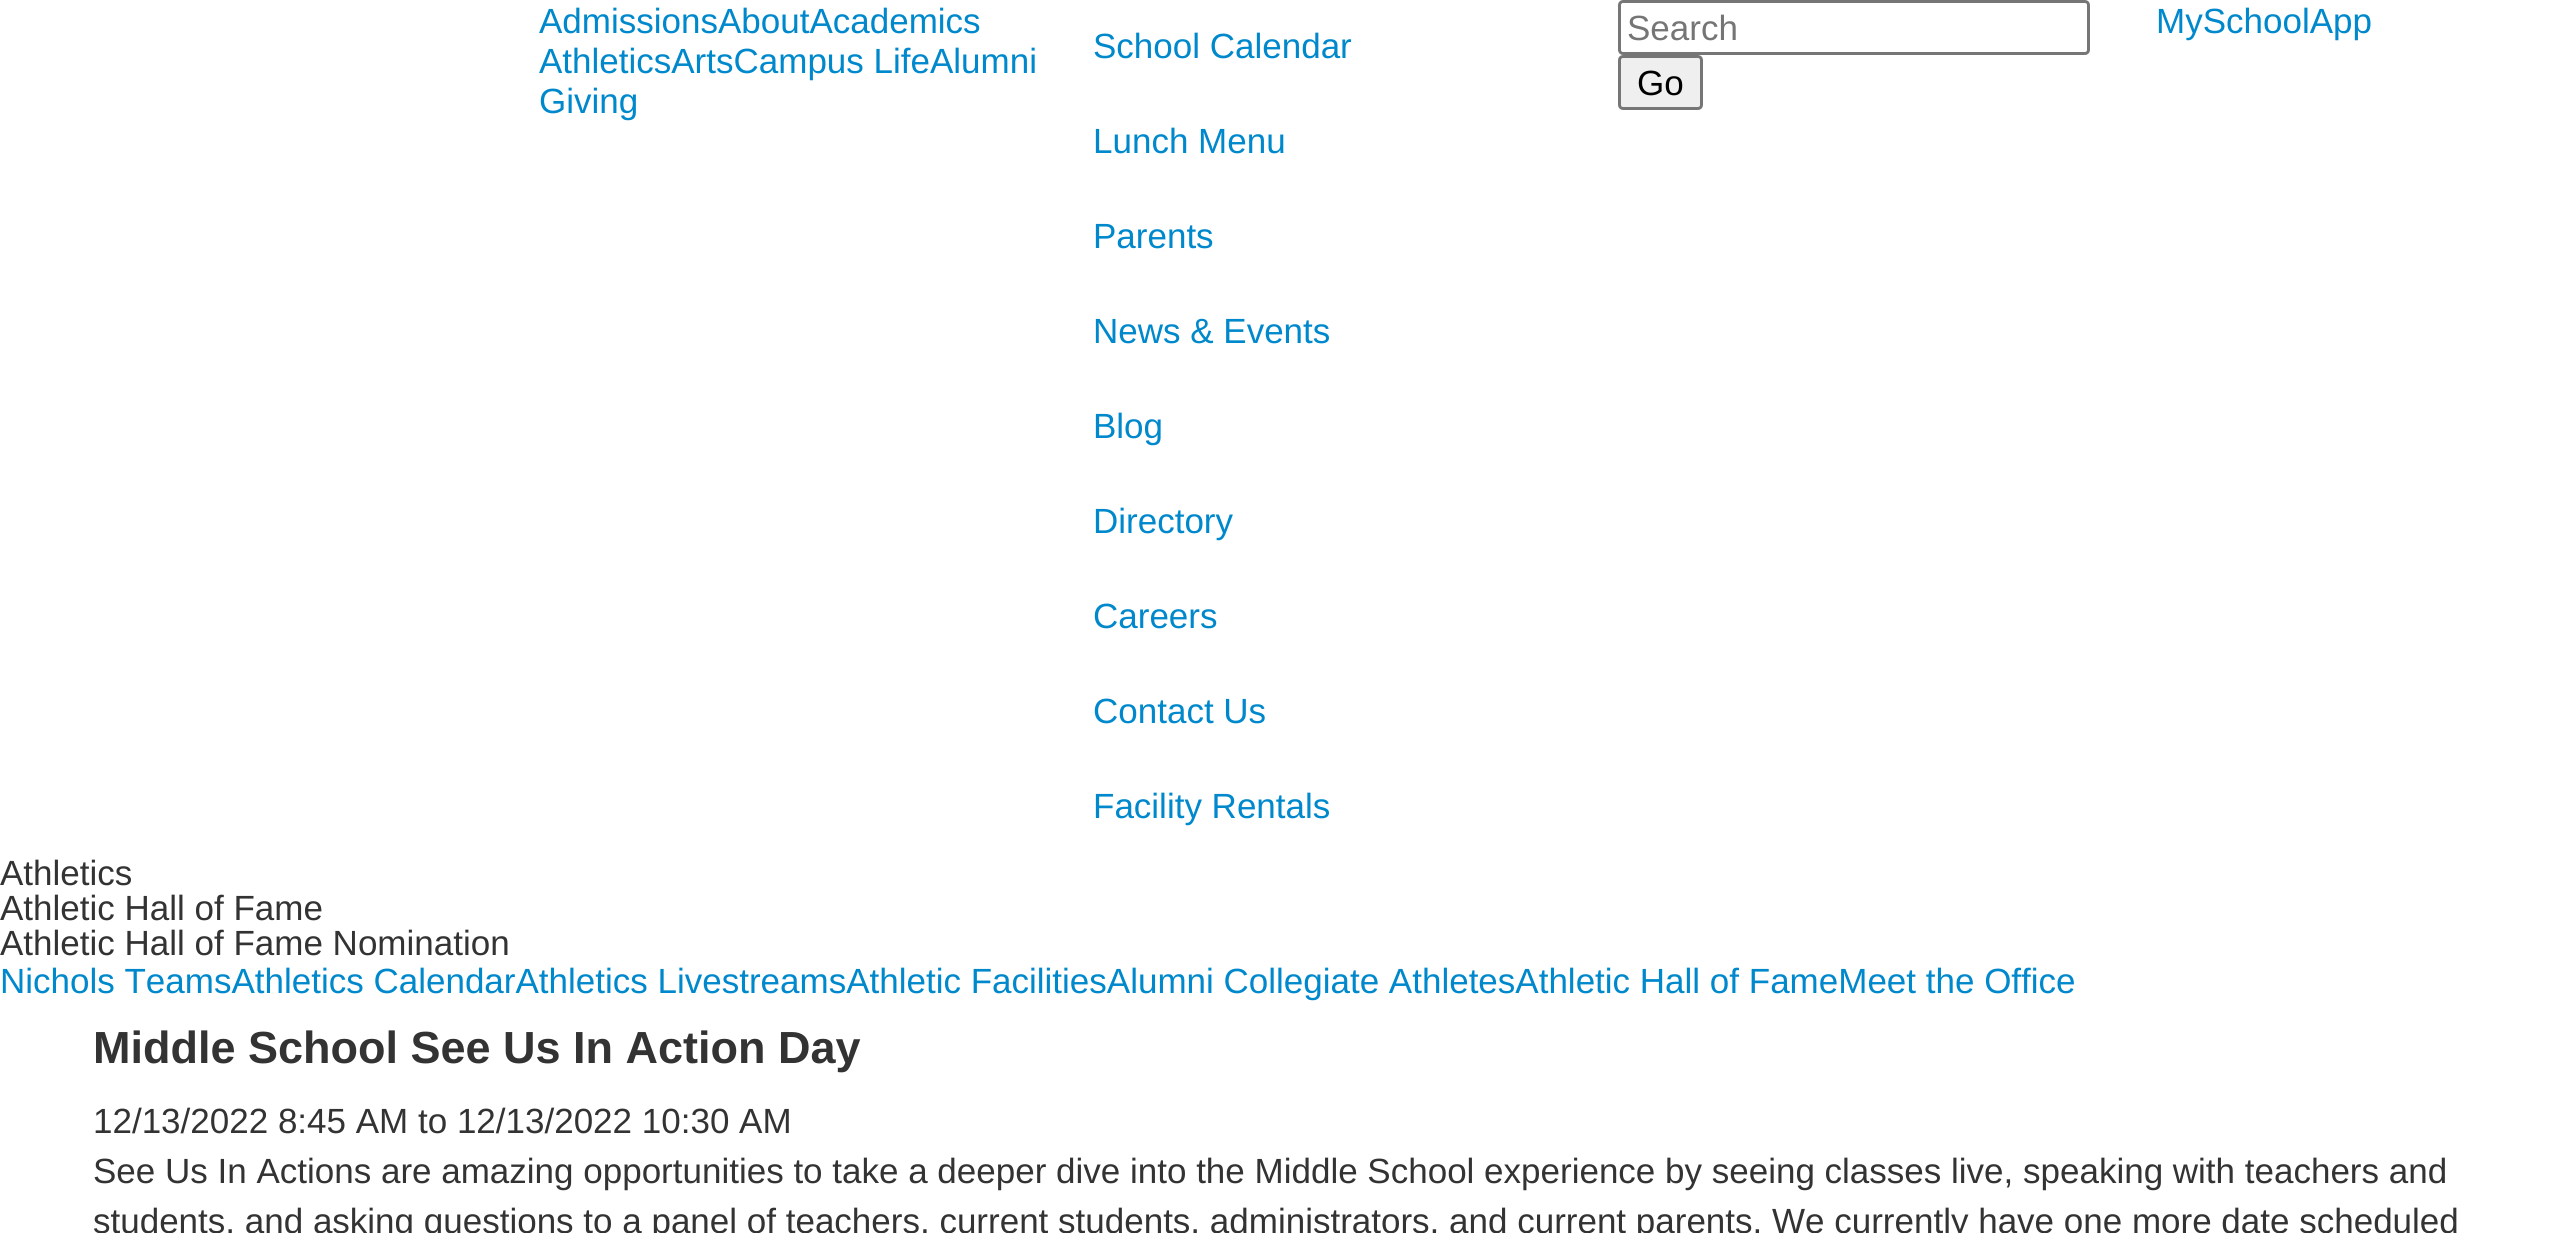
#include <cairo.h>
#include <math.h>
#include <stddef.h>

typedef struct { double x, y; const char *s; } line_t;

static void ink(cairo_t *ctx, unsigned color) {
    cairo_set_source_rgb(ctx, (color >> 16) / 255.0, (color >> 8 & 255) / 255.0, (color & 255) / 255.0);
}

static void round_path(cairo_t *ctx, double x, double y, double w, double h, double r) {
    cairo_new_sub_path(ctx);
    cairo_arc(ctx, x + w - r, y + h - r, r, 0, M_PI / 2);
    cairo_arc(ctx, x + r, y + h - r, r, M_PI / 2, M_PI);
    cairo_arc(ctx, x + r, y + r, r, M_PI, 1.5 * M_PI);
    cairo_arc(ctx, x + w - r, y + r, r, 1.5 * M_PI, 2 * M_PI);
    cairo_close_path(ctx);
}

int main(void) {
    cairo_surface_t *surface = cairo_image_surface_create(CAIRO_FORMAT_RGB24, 2560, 1233);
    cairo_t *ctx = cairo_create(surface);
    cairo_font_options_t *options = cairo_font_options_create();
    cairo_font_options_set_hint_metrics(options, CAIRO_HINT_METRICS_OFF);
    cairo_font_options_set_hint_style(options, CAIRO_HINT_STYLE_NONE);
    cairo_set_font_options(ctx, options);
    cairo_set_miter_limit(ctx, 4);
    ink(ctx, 0xFFFFFF);
    cairo_paint(ctx);
    cairo_select_font_face(ctx, "Liberation Sans", CAIRO_FONT_SLANT_NORMAL, CAIRO_FONT_WEIGHT_NORMAL);
    cairo_set_font_size(ctx, 35);
    ink(ctx, 0x0088CC);
    {
        static const line_t items[] = {
            {539, 33, "AdmissionsAboutAcademics"},
            {539, 73, "AthleticsArtsCampus LifeAlumni"},
            {539, 113, "Giving"},
            {1093, 58, "School Calendar"},
            {1093, 153, "Lunch Menu"},
            {1093, 248, "Parents"},
            {1093, 343, "News & Events"},
            {1093, 438, "Blog"},
            {1093, 533, "Directory"},
            {1093, 628, "Careers"},
            {1093, 723, "Contact Us"},
            {1093, 818, "Facility Rentals"},
        };
        for (size_t i = 0; i < sizeof items / sizeof *items; i++) {
            cairo_move_to(ctx, items[i].x, items[i].y);
            cairo_show_text(ctx, items[i].s);
        }
    }
    round_path(ctx, 1619.5, 1.5, 469, 52, 3.5);
    ink(ctx, 0x767676);
    cairo_set_line_width(ctx, 3);
    cairo_stroke(ctx);
    ink(ctx, 0x757575);
    cairo_move_to(ctx, 1627, 40);
    cairo_show_text(ctx, "Search");
    ink(ctx, 0xEFEFEF);
    round_path(ctx, 1619.5, 56.5, 82, 52, 3.5);
    cairo_fill_preserve(ctx);
    ink(ctx, 0x767676);
    cairo_stroke(ctx);
    ink(ctx, 0x000000);
    cairo_move_to(ctx, 1637, 95);
    cairo_show_text(ctx, "Go");
    ink(ctx, 0x0088CC);
    cairo_move_to(ctx, 2156, 33);
    cairo_show_text(ctx, "MySchoolApp");
    ink(ctx, 0x333333);
    {
        static const line_t items[] = {
            {0, 885, "Athletics"},
            {0, 920, "Athletic Hall of Fame"},
            {0, 955, "Athletic Hall of Fame Nomination"},
        };
        for (size_t i = 0; i < sizeof items / sizeof *items; i++) {
            cairo_move_to(ctx, items[i].x, items[i].y);
            cairo_show_text(ctx, items[i].s);
        }
    }
    ink(ctx, 0x0088CC);
    cairo_move_to(ctx, 0, 993);
    cairo_show_text(ctx, "Nichols TeamsAthletics CalendarAthletics LivestreamsAthletic FacilitiesAlumni Collegiate AthletesAthletic Hall of FameMeet the Office");
    cairo_select_font_face(ctx, "Liberation Sans", CAIRO_FONT_SLANT_NORMAL, CAIRO_FONT_WEIGHT_BOLD);
    cairo_set_font_size(ctx, 45);
    ink(ctx, 0x333333);
    cairo_move_to(ctx, 93, 1063);
    cairo_show_text(ctx, "Middle School See Us In Action Day");
    cairo_select_font_face(ctx, "Liberation Sans", CAIRO_FONT_SLANT_NORMAL, CAIRO_FONT_WEIGHT_NORMAL);
    cairo_set_font_size(ctx, 35);
    {
        static const line_t items[] = {
            {93, 1133, "12/13/2022 8:45 AM to 12/13/2022 10:30 AM"},
            {93, 1183, "See Us In Actions are amazing opportunities to take a deeper dive into the Middle School experience by seeing classes live, speaking with teachers and"},
            {93, 1233, "students, and asking questions to a panel of teachers, current students, administrators, and current parents. We currently have one more date scheduled"},
        };
        for (size_t i = 0; i < sizeof items / sizeof *items; i++) {
            cairo_move_to(ctx, items[i].x, items[i].y);
            cairo_show_text(ctx, items[i].s);
        }
    }
    cairo_surface_write_to_png(surface, "image.png");
    cairo_font_options_destroy(options);
    cairo_destroy(ctx);
    cairo_surface_destroy(surface);
    return 0;
}
